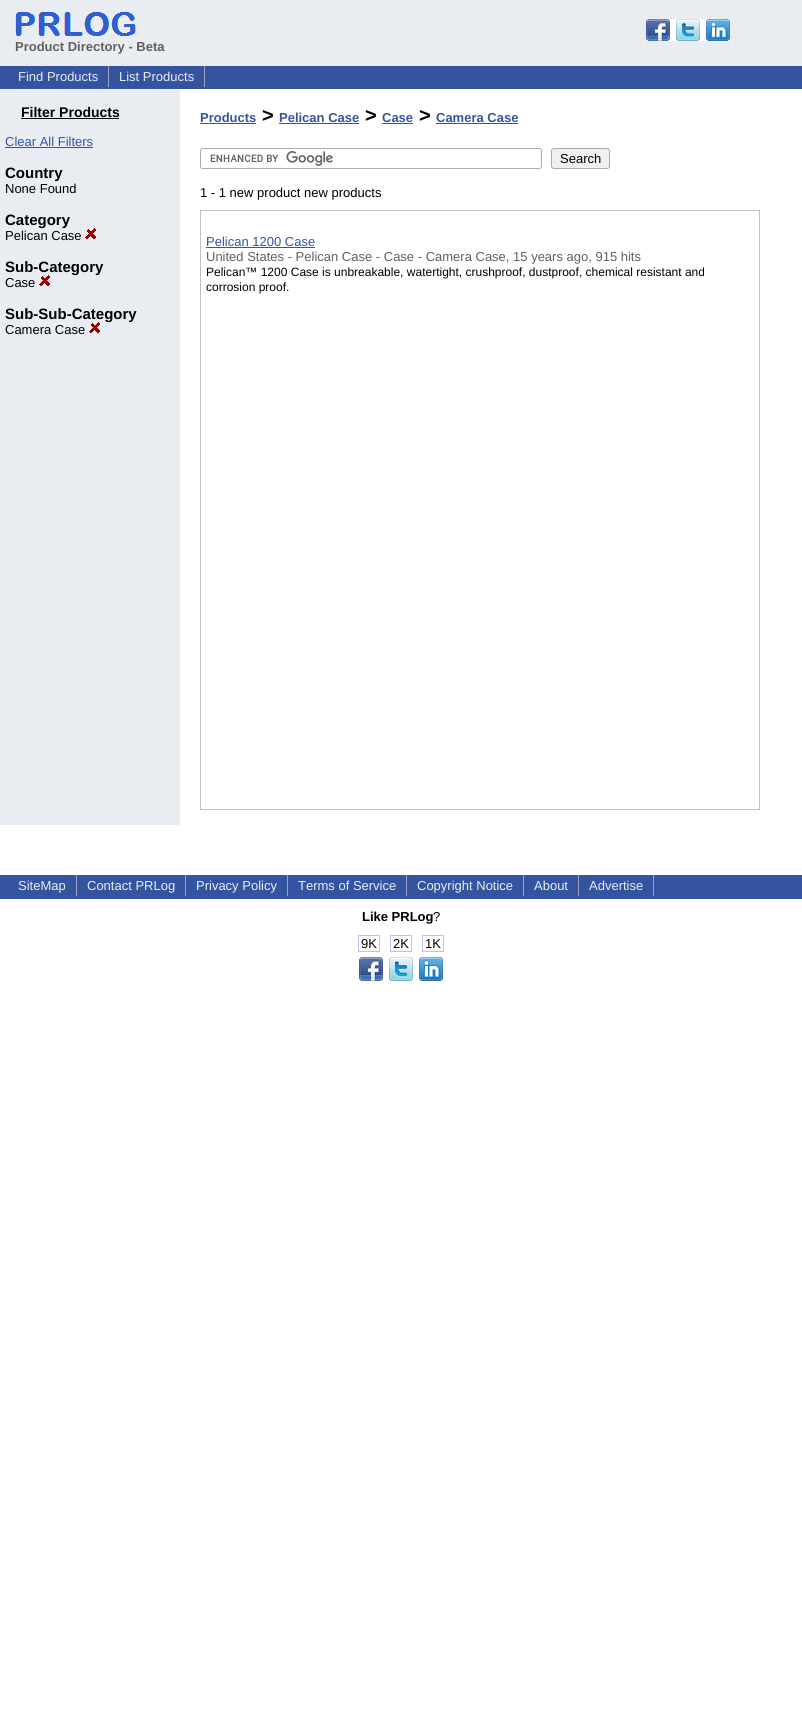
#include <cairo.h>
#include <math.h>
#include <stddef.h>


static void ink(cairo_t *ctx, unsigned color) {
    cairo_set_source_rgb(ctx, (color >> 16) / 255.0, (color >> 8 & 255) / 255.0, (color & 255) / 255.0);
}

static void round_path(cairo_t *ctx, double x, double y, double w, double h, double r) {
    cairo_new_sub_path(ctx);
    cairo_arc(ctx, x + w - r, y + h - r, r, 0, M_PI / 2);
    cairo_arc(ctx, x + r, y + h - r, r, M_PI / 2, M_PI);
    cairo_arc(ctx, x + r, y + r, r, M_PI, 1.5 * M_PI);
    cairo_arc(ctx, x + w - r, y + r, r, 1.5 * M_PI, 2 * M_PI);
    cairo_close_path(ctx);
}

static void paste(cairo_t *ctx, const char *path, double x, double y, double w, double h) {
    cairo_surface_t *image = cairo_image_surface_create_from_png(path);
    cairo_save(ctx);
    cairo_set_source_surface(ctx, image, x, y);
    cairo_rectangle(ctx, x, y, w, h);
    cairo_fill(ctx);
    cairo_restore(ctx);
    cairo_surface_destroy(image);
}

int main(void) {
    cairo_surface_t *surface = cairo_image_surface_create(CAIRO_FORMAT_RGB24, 802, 1729);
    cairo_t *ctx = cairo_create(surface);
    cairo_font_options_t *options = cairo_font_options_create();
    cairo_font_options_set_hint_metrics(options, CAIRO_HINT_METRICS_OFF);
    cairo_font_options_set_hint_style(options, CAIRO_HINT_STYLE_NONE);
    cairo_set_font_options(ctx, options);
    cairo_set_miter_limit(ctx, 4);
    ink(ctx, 0xFFFFFF);
    cairo_paint(ctx);
    ink(ctx, 0xE9EDF2);
    cairo_rectangle(ctx, 0, 0, 802, 66);
    cairo_fill(ctx);
    paste(ctx, "media/1.png", 646, 19, 84, 22);
    paste(ctx, "media/2.png", 15, 12, 121, 24);
    cairo_select_font_face(ctx, "Liberation Sans", CAIRO_FONT_SLANT_NORMAL, CAIRO_FONT_WEIGHT_BOLD);
    cairo_set_font_size(ctx, 13);
    ink(ctx, 0x606060);
    cairo_move_to(ctx, 15, 51);
    cairo_show_text(ctx, "Product Directory - Beta");
    ink(ctx, 0x3454A0);
    cairo_rectangle(ctx, 0, 66, 802, 23);
    cairo_fill(ctx);
    ink(ctx, 0xA0A0C0);
    cairo_rectangle(ctx, 108, 66, 1, 21);
    cairo_fill(ctx);
    cairo_select_font_face(ctx, "Liberation Sans", CAIRO_FONT_SLANT_NORMAL, CAIRO_FONT_WEIGHT_NORMAL);
    ink(ctx, 0xE9EDF2);
    cairo_move_to(ctx, 18, 81);
    cairo_show_text(ctx, "Find Products");
    ink(ctx, 0xA0A0C0);
    cairo_rectangle(ctx, 204, 66, 1, 21);
    cairo_fill(ctx);
    ink(ctx, 0xE9EDF2);
    cairo_move_to(ctx, 119, 81);
    cairo_show_text(ctx, "List Products");
    cairo_rectangle(ctx, 0, 89, 180, 736);
    cairo_fill(ctx);
    cairo_select_font_face(ctx, "Liberation Sans", CAIRO_FONT_SLANT_NORMAL, CAIRO_FONT_WEIGHT_BOLD);
    cairo_set_font_size(ctx, 14);
    ink(ctx, 0x000000);
    cairo_move_to(ctx, 21, 117);
    cairo_show_text(ctx, "Filter Products");
    cairo_rectangle(ctx, 21, 118, 98, 1);
    cairo_fill(ctx);
    cairo_select_font_face(ctx, "Liberation Sans", CAIRO_FONT_SLANT_NORMAL, CAIRO_FONT_WEIGHT_NORMAL);
    cairo_set_font_size(ctx, 13);
    ink(ctx, 0x3454A0);
    cairo_move_to(ctx, 5, 146);
    cairo_show_text(ctx, "Clear All Filters");
    cairo_rectangle(ctx, 5, 147, 88, 1);
    cairo_fill(ctx);
    cairo_select_font_face(ctx, "Liberation Sans", CAIRO_FONT_SLANT_NORMAL, CAIRO_FONT_WEIGHT_BOLD);
    cairo_set_font_size(ctx, 15);
    ink(ctx, 0x000000);
    cairo_move_to(ctx, 5, 178);
    cairo_show_text(ctx, "Country");
    cairo_select_font_face(ctx, "Liberation Sans", CAIRO_FONT_SLANT_NORMAL, CAIRO_FONT_WEIGHT_NORMAL);
    cairo_set_font_size(ctx, 13);
    cairo_move_to(ctx, 5, 193);
    cairo_show_text(ctx, "None Found");
    cairo_select_font_face(ctx, "Liberation Sans", CAIRO_FONT_SLANT_NORMAL, CAIRO_FONT_WEIGHT_BOLD);
    cairo_set_font_size(ctx, 15);
    cairo_move_to(ctx, 5, 225);
    cairo_show_text(ctx, "Category");
    cairo_select_font_face(ctx, "Liberation Sans", CAIRO_FONT_SLANT_NORMAL, CAIRO_FONT_WEIGHT_NORMAL);
    cairo_set_font_size(ctx, 13);
    cairo_move_to(ctx, 5, 240);
    cairo_show_text(ctx, "Pelican Case");
    paste(ctx, "media/3.png", 85, 228, 11, 11);
    cairo_select_font_face(ctx, "Liberation Sans", CAIRO_FONT_SLANT_NORMAL, CAIRO_FONT_WEIGHT_BOLD);
    cairo_set_font_size(ctx, 15);
    cairo_move_to(ctx, 5, 272);
    cairo_show_text(ctx, "Sub-Category");
    cairo_select_font_face(ctx, "Liberation Sans", CAIRO_FONT_SLANT_NORMAL, CAIRO_FONT_WEIGHT_NORMAL);
    cairo_set_font_size(ctx, 13);
    cairo_move_to(ctx, 5, 287);
    cairo_show_text(ctx, "Case");
    paste(ctx, "media/3.png", 39, 275, 11, 11);
    cairo_select_font_face(ctx, "Liberation Sans", CAIRO_FONT_SLANT_NORMAL, CAIRO_FONT_WEIGHT_BOLD);
    cairo_set_font_size(ctx, 15);
    cairo_move_to(ctx, 5, 319);
    cairo_show_text(ctx, "Sub-Sub-Category");
    cairo_select_font_face(ctx, "Liberation Sans", CAIRO_FONT_SLANT_NORMAL, CAIRO_FONT_WEIGHT_NORMAL);
    cairo_set_font_size(ctx, 13);
    cairo_move_to(ctx, 5, 334);
    cairo_show_text(ctx, "Camera Case");
    paste(ctx, "media/3.png", 89, 322, 11, 11);
    cairo_select_font_face(ctx, "Liberation Sans", CAIRO_FONT_SLANT_NORMAL, CAIRO_FONT_WEIGHT_BOLD);
    ink(ctx, 0x3454A0);
    cairo_move_to(ctx, 200, 122);
    cairo_show_text(ctx, "Products");
    cairo_rectangle(ctx, 200, 123, 56, 1);
    cairo_fill(ctx);
    cairo_set_font_size(ctx, 20);
    ink(ctx, 0x000000);
    cairo_move_to(ctx, 262, 122);
    cairo_show_text(ctx, ">");
    cairo_set_font_size(ctx, 13);
    ink(ctx, 0x3454A0);
    cairo_move_to(ctx, 279, 122);
    cairo_show_text(ctx, "Pelican Case");
    cairo_rectangle(ctx, 279, 123, 80, 1);
    cairo_fill(ctx);
    cairo_set_font_size(ctx, 20);
    ink(ctx, 0x000000);
    cairo_move_to(ctx, 365, 122);
    cairo_show_text(ctx, ">");
    cairo_set_font_size(ctx, 13);
    ink(ctx, 0x3454A0);
    cairo_move_to(ctx, 382, 122);
    cairo_show_text(ctx, "Case");
    cairo_rectangle(ctx, 382, 123, 31, 1);
    cairo_fill(ctx);
    cairo_set_font_size(ctx, 20);
    ink(ctx, 0x000000);
    cairo_move_to(ctx, 419, 122);
    cairo_show_text(ctx, ">");
    cairo_set_font_size(ctx, 13);
    ink(ctx, 0x3454A0);
    cairo_move_to(ctx, 436, 122);
    cairo_show_text(ctx, "Camera Case");
    cairo_rectangle(ctx, 436, 123, 82, 1);
    cairo_fill(ctx);
    paste(ctx, "media/4.png", 210, 151, 123, 15);
    round_path(ctx, 200.5, 148.5, 341, 20, 2.5);
    ink(ctx, 0xAAAAAA);
    cairo_set_line_width(ctx, 1);
    cairo_stroke(ctx);
    ink(ctx, 0xF0F0F0);
    round_path(ctx, 551.5, 148.5, 58, 20, 2.5);
    cairo_fill_preserve(ctx);
    ink(ctx, 0xAAAAAA);
    cairo_stroke(ctx);
    cairo_select_font_face(ctx, "Liberation Sans", CAIRO_FONT_SLANT_NORMAL, CAIRO_FONT_WEIGHT_NORMAL);
    ink(ctx, 0x000000);
    cairo_move_to(ctx, 560, 163);
    cairo_show_text(ctx, "Search");
    cairo_move_to(ctx, 200, 197);
    cairo_show_text(ctx, "1 - 1 new product new products");
    cairo_rectangle(ctx, 200.5, 210.5, 559, 599);
    ink(ctx, 0xC0C0C0);
    cairo_stroke(ctx);
    ink(ctx, 0x3454A0);
    cairo_move_to(ctx, 206, 246);
    cairo_show_text(ctx, "Pelican 1200 Case");
    cairo_rectangle(ctx, 206, 247, 109, 1);
    cairo_fill(ctx);
    ink(ctx, 0x606060);
    cairo_move_to(ctx, 206, 261);
    cairo_show_text(ctx, "United States - Pelican Case - Case - Camera Case, 15 years ago, 915 hits");
    cairo_set_font_size(ctx, 12);
    ink(ctx, 0x000000);
    cairo_move_to(ctx, 206, 276);
    cairo_show_text(ctx, "Pelican™ 1200 Case is unbreakable, watertight, crushproof, dustproof, chemical resistant and");
    cairo_move_to(ctx, 206, 291);
    cairo_show_text(ctx, "corrosion proof.");
    ink(ctx, 0x3454A0);
    cairo_rectangle(ctx, 0, 875, 802, 24);
    cairo_fill(ctx);
    ink(ctx, 0xA0A0C0);
    cairo_rectangle(ctx, 76, 875, 1, 21);
    cairo_fill(ctx);
    cairo_set_font_size(ctx, 13);
    ink(ctx, 0xE9EDF2);
    cairo_move_to(ctx, 18, 890);
    cairo_show_text(ctx, "SiteMap");
    ink(ctx, 0xA0A0C0);
    cairo_rectangle(ctx, 185, 875, 1, 21);
    cairo_fill(ctx);
    ink(ctx, 0xE9EDF2);
    cairo_move_to(ctx, 87, 890);
    cairo_show_text(ctx, "Contact PRLog");
    ink(ctx, 0xA0A0C0);
    cairo_rectangle(ctx, 287, 875, 1, 21);
    cairo_fill(ctx);
    ink(ctx, 0xE9EDF2);
    cairo_move_to(ctx, 196, 890);
    cairo_show_text(ctx, "Privacy Policy");
    ink(ctx, 0xA0A0C0);
    cairo_rectangle(ctx, 406, 875, 1, 21);
    cairo_fill(ctx);
    ink(ctx, 0xE9EDF2);
    cairo_move_to(ctx, 298, 890);
    cairo_show_text(ctx, "Terms of Service");
    ink(ctx, 0xA0A0C0);
    cairo_rectangle(ctx, 523, 875, 1, 21);
    cairo_fill(ctx);
    ink(ctx, 0xE9EDF2);
    cairo_move_to(ctx, 417, 890);
    cairo_show_text(ctx, "Copyright Notice");
    ink(ctx, 0xA0A0C0);
    cairo_rectangle(ctx, 578, 875, 1, 21);
    cairo_fill(ctx);
    ink(ctx, 0xE9EDF2);
    cairo_move_to(ctx, 534, 890);
    cairo_show_text(ctx, "About");
    ink(ctx, 0xA0A0C0);
    cairo_rectangle(ctx, 653, 875, 1, 21);
    cairo_fill(ctx);
    ink(ctx, 0xE9EDF2);
    cairo_move_to(ctx, 589, 890);
    cairo_show_text(ctx, "Advertise");
    cairo_select_font_face(ctx, "Liberation Sans", CAIRO_FONT_SLANT_NORMAL, CAIRO_FONT_WEIGHT_BOLD);
    ink(ctx, 0x000000);
    cairo_move_to(ctx, 362, 921);
    cairo_show_text(ctx, "Like PRLog");
    cairo_select_font_face(ctx, "Liberation Sans", CAIRO_FONT_SLANT_NORMAL, CAIRO_FONT_WEIGHT_NORMAL);
    cairo_move_to(ctx, 433, 921);
    cairo_show_text(ctx, "?");
    cairo_rectangle(ctx, 358.5, 935.5, 21, 16);
    ink(ctx, 0xC0C0FF);
    cairo_stroke(ctx);
    ink(ctx, 0x000000);
    cairo_move_to(ctx, 361, 948);
    cairo_show_text(ctx, "9K");
    cairo_rectangle(ctx, 390.5, 935.5, 21, 16);
    ink(ctx, 0xC0C0FF);
    cairo_stroke(ctx);
    ink(ctx, 0x000000);
    cairo_move_to(ctx, 393, 948);
    cairo_show_text(ctx, "2K");
    cairo_rectangle(ctx, 422.5, 935.5, 21, 16);
    ink(ctx, 0xC0C0FF);
    cairo_stroke(ctx);
    ink(ctx, 0x000000);
    cairo_move_to(ctx, 425, 948);
    cairo_show_text(ctx, "1K");
    paste(ctx, "media/5.png", 359, 957, 84, 24);
    cairo_surface_write_to_png(surface, "image.png");
    cairo_font_options_destroy(options);
    cairo_destroy(ctx);
    cairo_surface_destroy(surface);
    return 0;
}
